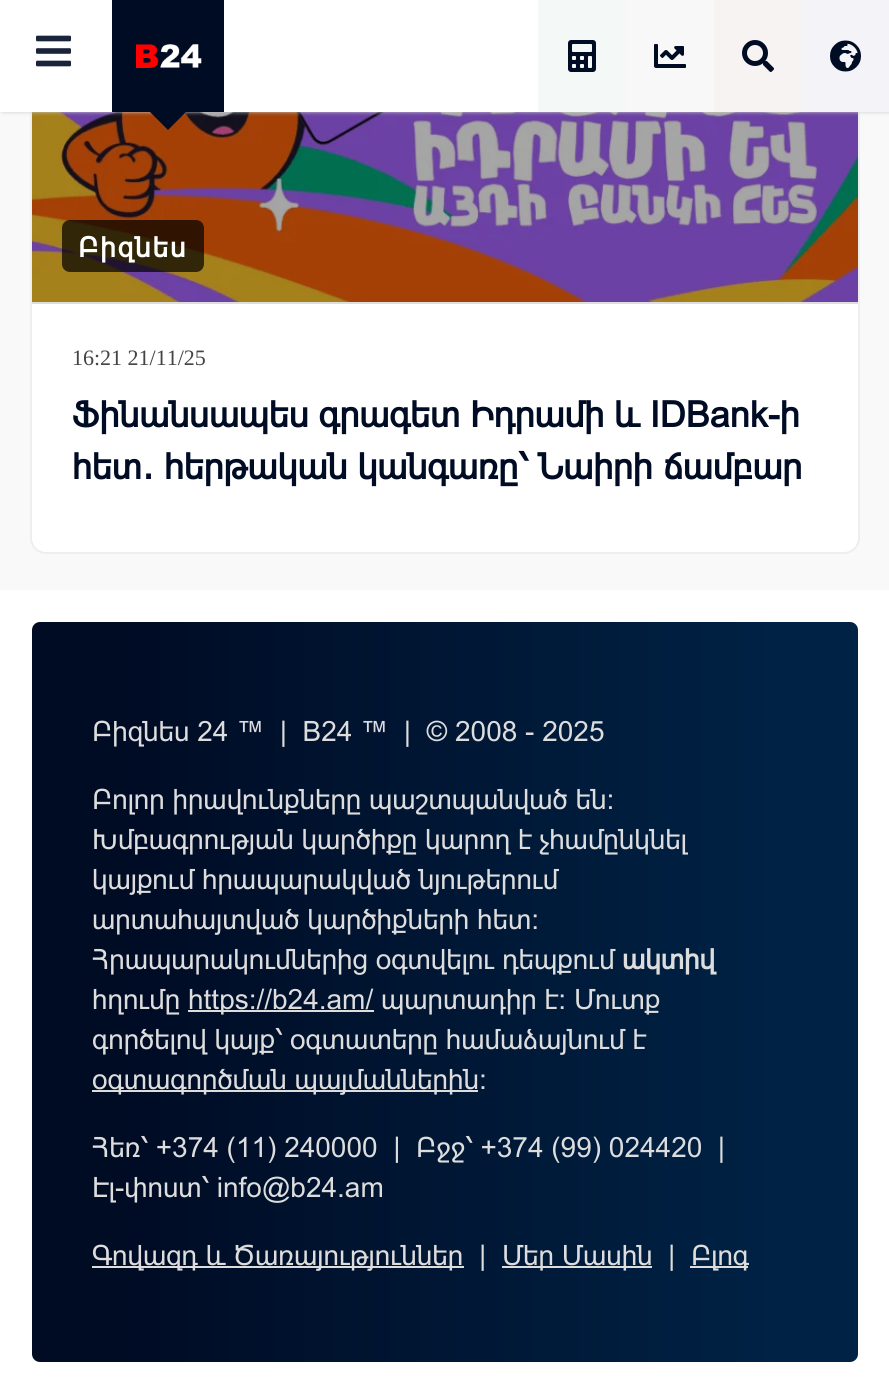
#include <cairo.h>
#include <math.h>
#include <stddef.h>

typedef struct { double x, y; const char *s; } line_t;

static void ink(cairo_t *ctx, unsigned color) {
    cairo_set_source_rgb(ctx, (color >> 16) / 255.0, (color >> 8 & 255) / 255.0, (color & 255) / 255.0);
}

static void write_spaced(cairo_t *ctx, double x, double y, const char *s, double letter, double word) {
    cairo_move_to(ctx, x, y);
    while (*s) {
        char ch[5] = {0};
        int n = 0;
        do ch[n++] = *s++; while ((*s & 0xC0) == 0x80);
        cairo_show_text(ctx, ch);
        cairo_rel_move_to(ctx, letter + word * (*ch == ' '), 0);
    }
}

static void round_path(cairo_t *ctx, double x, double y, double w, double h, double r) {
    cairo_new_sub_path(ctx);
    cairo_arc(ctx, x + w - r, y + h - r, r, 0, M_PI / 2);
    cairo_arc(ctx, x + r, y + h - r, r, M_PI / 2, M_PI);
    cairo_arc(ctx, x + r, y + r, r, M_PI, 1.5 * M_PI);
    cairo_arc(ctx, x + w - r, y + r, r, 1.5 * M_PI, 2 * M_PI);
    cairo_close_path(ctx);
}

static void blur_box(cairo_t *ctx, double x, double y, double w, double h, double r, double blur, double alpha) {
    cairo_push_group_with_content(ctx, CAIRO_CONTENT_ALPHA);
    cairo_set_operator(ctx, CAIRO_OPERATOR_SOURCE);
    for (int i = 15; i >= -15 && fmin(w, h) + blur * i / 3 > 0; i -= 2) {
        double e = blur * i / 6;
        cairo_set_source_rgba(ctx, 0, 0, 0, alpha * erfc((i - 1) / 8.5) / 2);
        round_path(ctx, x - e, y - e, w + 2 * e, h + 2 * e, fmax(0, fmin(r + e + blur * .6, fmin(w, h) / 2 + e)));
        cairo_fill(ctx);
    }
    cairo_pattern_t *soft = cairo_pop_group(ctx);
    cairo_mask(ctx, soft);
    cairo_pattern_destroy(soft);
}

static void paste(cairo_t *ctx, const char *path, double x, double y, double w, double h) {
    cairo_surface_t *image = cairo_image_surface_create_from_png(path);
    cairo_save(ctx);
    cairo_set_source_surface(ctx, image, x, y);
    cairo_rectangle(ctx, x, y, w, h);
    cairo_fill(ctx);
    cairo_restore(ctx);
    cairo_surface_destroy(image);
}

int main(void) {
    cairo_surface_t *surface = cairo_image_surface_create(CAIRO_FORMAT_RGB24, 889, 1400);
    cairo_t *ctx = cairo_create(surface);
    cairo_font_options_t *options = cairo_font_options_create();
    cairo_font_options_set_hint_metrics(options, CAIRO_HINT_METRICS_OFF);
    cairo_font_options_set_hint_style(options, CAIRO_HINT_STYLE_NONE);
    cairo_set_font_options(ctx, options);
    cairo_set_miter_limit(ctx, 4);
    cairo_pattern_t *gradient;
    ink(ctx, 0xF9F9F9);
    cairo_paint(ctx);
    ink(ctx, 0xFFFFFF);
    round_path(ctx, 31, -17, 828, 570, 15);
    cairo_fill_preserve(ctx);
    ink(ctx, 0xEEEEEE);
    cairo_stroke(ctx);
    paste(ctx, "media/7.png", 32, 112, 826, 190);
    ink(ctx, 0xCCCCCC);
    blur_box(ctx, 2, 0, 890, 112, 0, 2, 1);
    ink(ctx, 0xFFFFFF);
    cairo_rectangle(ctx, 0, 0, 538, 112);
    cairo_fill(ctx);
    paste(ctx, "media/1.png", 36, 35, 35, 32);
    paste(ctx, "media/2.png", 112, 0, 112, 112);
    ink(ctx, 0x000B24);
    cairo_new_path(ctx);
    cairo_move_to(ctx, 144, 106);
    cairo_line_to(ctx, 192, 106);
    cairo_line_to(ctx, 168, 130);
    cairo_close_path(ctx);
    cairo_fill(ctx);
    ink(ctx, 0xF4F8F7);
    cairo_rectangle(ctx, 538, 0, 88, 112);
    cairo_fill(ctx);
    paste(ctx, "media/3.png", 568, 40, 28, 32);
    ink(ctx, 0xF8F8F8);
    cairo_rectangle(ctx, 626, 0, 88, 112);
    cairo_fill(ctx);
    paste(ctx, "media/4.png", 654, 44, 32, 24);
    ink(ctx, 0xF8F3F3);
    cairo_rectangle(ctx, 714, 0, 88, 112);
    cairo_fill(ctx);
    paste(ctx, "media/5.png", 742, 40, 32, 32);
    ink(ctx, 0xF3F3F8);
    cairo_rectangle(ctx, 802, 0, 87, 112);
    cairo_fill(ctx);
    paste(ctx, "media/6.png", 830, 40, 31, 32);
    ink(ctx, 0xDDDDDD);
    cairo_rectangle(ctx, 32, 302, 826, 2);
    cairo_fill(ctx);
    cairo_set_source_rgba(ctx, 0, 0, 0, 0.7);
    round_path(ctx, 62, 220, 142, 52, 8);
    cairo_fill(ctx);
    cairo_select_font_face(ctx, "Arial", CAIRO_FONT_SLANT_NORMAL, CAIRO_FONT_WEIGHT_BOLD);
    cairo_set_font_size(ctx, 28);
    ink(ctx, 0xFFFFFF);
    write_spaced(ctx, 78, 257, "Բիզնես", 2, 0);
    cairo_select_font_face(ctx, "Liberation Serif", CAIRO_FONT_SLANT_NORMAL, CAIRO_FONT_WEIGHT_NORMAL);
    cairo_set_font_size(ctx, 22);
    ink(ctx, 0x444444);
    cairo_move_to(ctx, 72, 365);
    cairo_show_text(ctx, "16:21 21/11/25");
    cairo_select_font_face(ctx, "Arial", CAIRO_FONT_SLANT_NORMAL, CAIRO_FONT_WEIGHT_BOLD);
    cairo_set_font_size(ctx, 36);
    ink(ctx, 0x000B24);
    cairo_move_to(ctx, 72, 427);
    cairo_show_text(ctx, "Ֆինանսապես գրագետ Իդրամի և IDBank-ի");
    cairo_move_to(ctx, 72, 479);
    cairo_show_text(ctx, "հետ");
    cairo_select_font_face(ctx, "DejaVu Sans", CAIRO_FONT_SLANT_NORMAL, CAIRO_FONT_WEIGHT_BOLD);
    cairo_move_to(ctx, 142, 479);
    cairo_show_text(ctx, "․");
    cairo_select_font_face(ctx, "Arial", CAIRO_FONT_SLANT_NORMAL, CAIRO_FONT_WEIGHT_BOLD);
    cairo_move_to(ctx, 164, 479);
    cairo_show_text(ctx, "հերթական կանգառը՝ Նաիրի ճամբար");
    ink(ctx, 0xFFFFFF);
    cairo_rectangle(ctx, 0, 590, 889, 810);
    cairo_fill(ctx);
    gradient = cairo_pattern_create_linear(32, 992, 858, 992);
    cairo_pattern_add_color_stop_rgba(gradient, 0.1, 0, 0.043, 0.141, 1);
    cairo_pattern_add_color_stop_rgba(gradient, 0.9, 0, 0.133, 0.267, 1);
    cairo_set_source(ctx, gradient);
    cairo_pattern_destroy(gradient);
    round_path(ctx, 32, 622, 826, 740, 8);
    cairo_fill(ctx);
    cairo_select_font_face(ctx, "Arial", CAIRO_FONT_SLANT_NORMAL, CAIRO_FONT_WEIGHT_NORMAL);
    cairo_set_font_size(ctx, 28);
    ink(ctx, 0xDDDDDD);
    {
        static const line_t items[] = {
            {92, 741, "Բիզնես 24 ™  |  B24 ™  |  © 2008 - 2025"},
            {92, 809, "Բոլոր իրավունքները պաշտպանված են:"},
            {92, 849, "Խմբագրության կարծիքը կարող է չհամընկնել"},
            {92, 889, "կայքում հրապարակված նյութերում"},
            {92, 929, "արտահայտված կարծիքների հետ:"},
            {92, 969, "Հրապարակումներից օգտվելու դեպքում"},
        };
        for (size_t i = 0; i < sizeof items / sizeof *items; i++) {
            cairo_move_to(ctx, items[i].x, items[i].y);
            cairo_show_text(ctx, items[i].s);
        }
    }
    cairo_select_font_face(ctx, "Arial", CAIRO_FONT_SLANT_NORMAL, CAIRO_FONT_WEIGHT_BOLD);
    cairo_move_to(ctx, 622, 969);
    cairo_show_text(ctx, "ակտիվ");
    cairo_select_font_face(ctx, "Arial", CAIRO_FONT_SLANT_NORMAL, CAIRO_FONT_WEIGHT_NORMAL);
    cairo_move_to(ctx, 92, 1009);
    cairo_show_text(ctx, "հղումը");
    cairo_rectangle(ctx, 188, 1010, 186, 2);
    cairo_fill(ctx);
    cairo_move_to(ctx, 188, 1009);
    cairo_show_text(ctx, "https://b24.am/ պարտադիր է: Մուտք");
    cairo_move_to(ctx, 92, 1049);
    cairo_show_text(ctx, "գործելով կայք՝ օգտատերը համաձայնում է");
    cairo_rectangle(ctx, 92, 1090, 386, 2);
    cairo_fill(ctx);
    {
        static const line_t items[] = {
            {92, 1089, "օգտագործման պայմաններին։"},
            {92, 1157, "Հեռ՝ +374 (11) 240000  |  Բջջ՝ +374 (99) 024420  |"},
            {92, 1197, "Էլ-փոստ՝ info@b24.am"},
        };
        for (size_t i = 0; i < sizeof items / sizeof *items; i++) {
            cairo_move_to(ctx, items[i].x, items[i].y);
            cairo_show_text(ctx, items[i].s);
        }
    }
    cairo_rectangle(ctx, 92, 1266, 372, 2);
    cairo_fill(ctx);
    cairo_move_to(ctx, 92, 1265);
    cairo_show_text(ctx, "Գովազդ և Ծառայություններ");
    cairo_move_to(ctx, 479, 1265);
    cairo_show_text(ctx, "|");
    cairo_rectangle(ctx, 502, 1266, 150, 2);
    cairo_fill(ctx);
    cairo_move_to(ctx, 502, 1265);
    cairo_show_text(ctx, "Մեր Մասին");
    cairo_move_to(ctx, 668, 1265);
    cairo_show_text(ctx, "|");
    cairo_rectangle(ctx, 690, 1266, 58, 2);
    cairo_fill(ctx);
    cairo_move_to(ctx, 691, 1265);
    cairo_show_text(ctx, "Բլոգ");
    cairo_surface_write_to_png(surface, "image.png");
    cairo_font_options_destroy(options);
    cairo_destroy(ctx);
    cairo_surface_destroy(surface);
    return 0;
}
